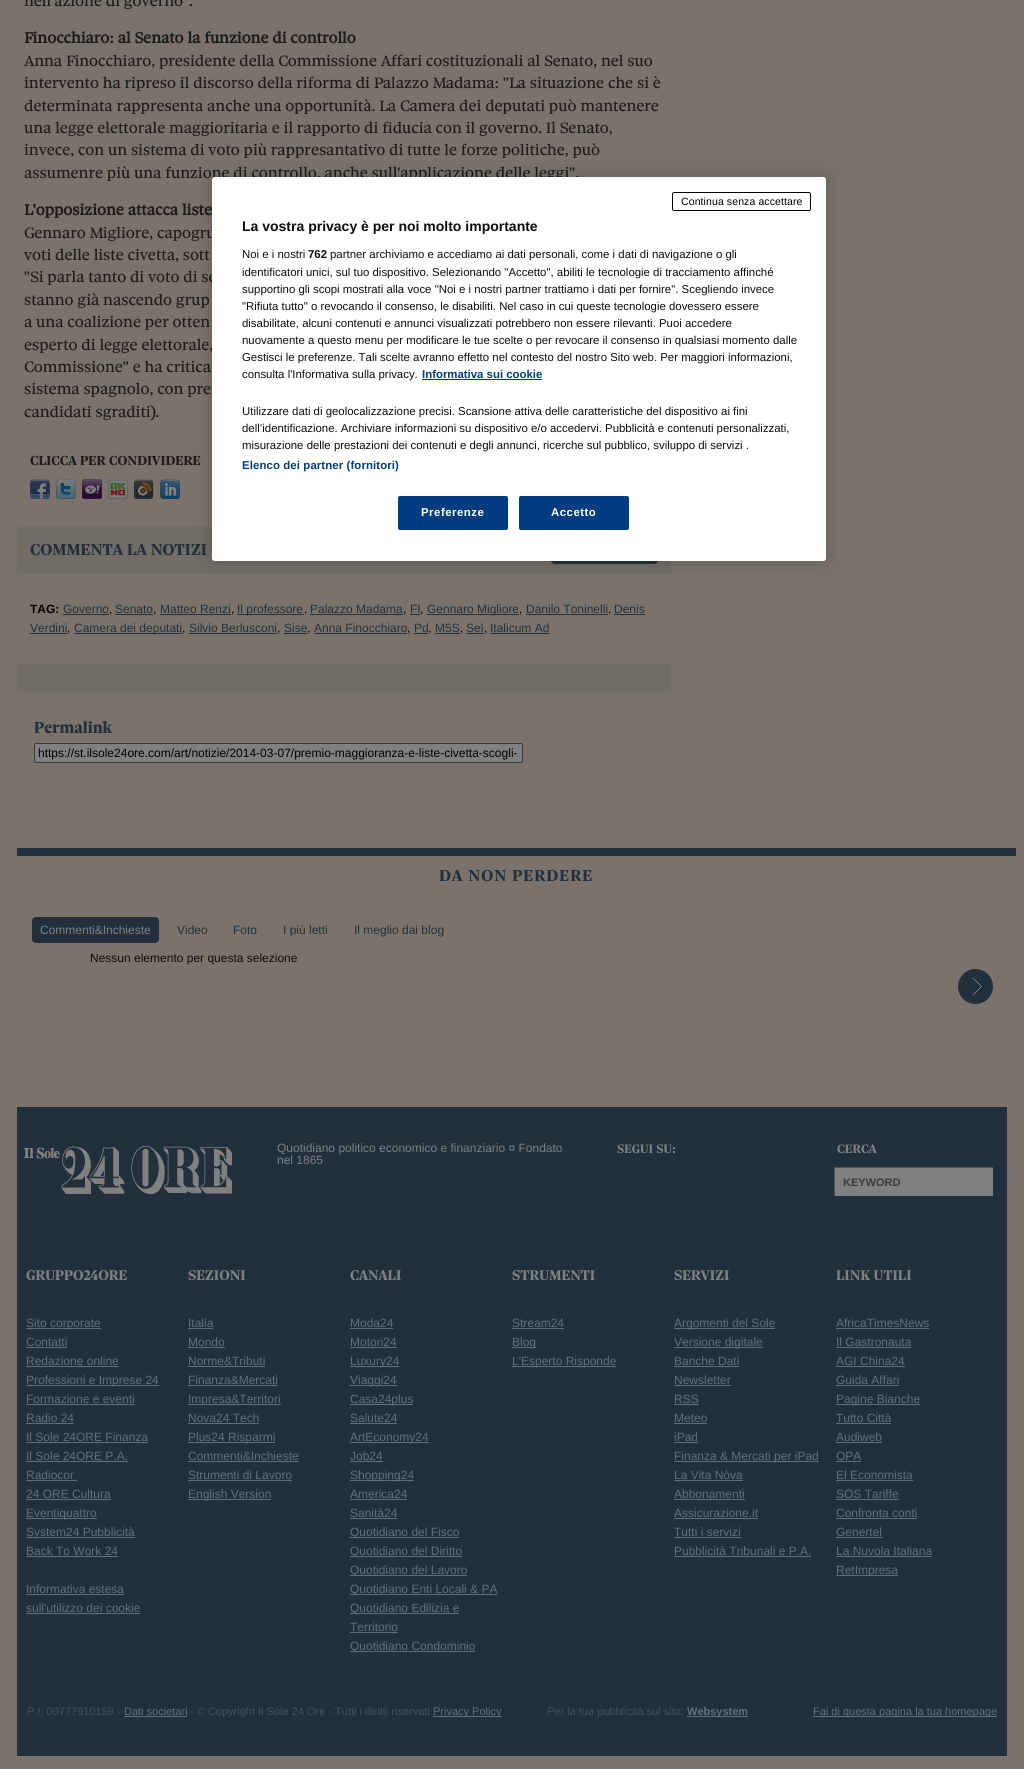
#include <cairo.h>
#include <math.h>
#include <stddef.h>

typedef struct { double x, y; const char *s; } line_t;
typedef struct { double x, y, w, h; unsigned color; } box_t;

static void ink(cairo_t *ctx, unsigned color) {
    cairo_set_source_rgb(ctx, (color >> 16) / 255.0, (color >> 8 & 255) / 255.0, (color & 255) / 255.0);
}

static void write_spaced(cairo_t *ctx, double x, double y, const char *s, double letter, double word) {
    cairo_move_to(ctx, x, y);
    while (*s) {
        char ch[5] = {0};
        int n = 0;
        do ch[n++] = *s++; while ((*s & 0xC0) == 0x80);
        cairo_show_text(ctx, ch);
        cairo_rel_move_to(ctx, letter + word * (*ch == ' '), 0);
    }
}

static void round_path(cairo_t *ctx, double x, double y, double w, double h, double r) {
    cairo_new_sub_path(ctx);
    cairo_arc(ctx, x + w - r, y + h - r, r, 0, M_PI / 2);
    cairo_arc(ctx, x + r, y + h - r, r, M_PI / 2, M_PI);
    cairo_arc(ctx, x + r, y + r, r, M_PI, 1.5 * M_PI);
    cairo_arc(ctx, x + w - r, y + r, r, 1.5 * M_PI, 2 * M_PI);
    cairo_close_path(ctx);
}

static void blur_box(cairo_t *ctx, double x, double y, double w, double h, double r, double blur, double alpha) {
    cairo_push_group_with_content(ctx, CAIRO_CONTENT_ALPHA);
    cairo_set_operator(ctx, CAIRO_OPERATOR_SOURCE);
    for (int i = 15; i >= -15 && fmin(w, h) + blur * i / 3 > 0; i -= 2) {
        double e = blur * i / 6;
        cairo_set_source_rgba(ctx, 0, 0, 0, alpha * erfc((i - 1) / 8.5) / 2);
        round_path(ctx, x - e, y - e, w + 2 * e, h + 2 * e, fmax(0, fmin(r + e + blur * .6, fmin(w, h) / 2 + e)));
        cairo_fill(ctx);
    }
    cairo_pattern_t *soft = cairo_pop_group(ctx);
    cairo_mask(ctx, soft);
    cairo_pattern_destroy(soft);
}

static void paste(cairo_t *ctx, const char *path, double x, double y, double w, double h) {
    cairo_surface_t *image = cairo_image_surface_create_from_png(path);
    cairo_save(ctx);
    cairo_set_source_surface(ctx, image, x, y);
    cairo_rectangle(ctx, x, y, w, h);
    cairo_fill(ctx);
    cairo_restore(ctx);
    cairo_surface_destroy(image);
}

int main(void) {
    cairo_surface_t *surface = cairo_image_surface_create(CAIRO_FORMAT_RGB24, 1024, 1769);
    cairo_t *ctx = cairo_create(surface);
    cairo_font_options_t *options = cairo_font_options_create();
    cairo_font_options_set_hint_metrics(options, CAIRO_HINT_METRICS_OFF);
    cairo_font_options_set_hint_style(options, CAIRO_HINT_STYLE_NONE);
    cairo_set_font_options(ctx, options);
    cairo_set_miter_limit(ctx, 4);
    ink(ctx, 0x7B736B);
    cairo_paint(ctx);
    cairo_select_font_face(ctx, "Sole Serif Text", CAIRO_FONT_SLANT_NORMAL, CAIRO_FONT_WEIGHT_NORMAL);
    cairo_set_font_size(ctx, 16);
    ink(ctx, 0x1D1D1D);
    cairo_move_to(ctx, 24, 6);
    cairo_show_text(ctx, "nell'azione di governo\".");
    cairo_select_font_face(ctx, "Sole Serif Text", CAIRO_FONT_SLANT_NORMAL, CAIRO_FONT_WEIGHT_BOLD);
    cairo_move_to(ctx, 24, 43);
    cairo_show_text(ctx, "Finocchiaro: al Senato la funzione di controllo");
    cairo_select_font_face(ctx, "Sole Serif Text", CAIRO_FONT_SLANT_NORMAL, CAIRO_FONT_WEIGHT_NORMAL);
    {
        static const line_t items[] = {
            {24, 66, "Anna Finocchiaro, presidente della Commissione Affari costituzionali al Senato, nel suo"},
            {24, 88, "intervento ha ripreso il discorso della riforma di Palazzo Madama: \"La situazione che si è"},
            {24, 111, "determinata rappresenta anche una opportunità. La Camera dei deputati può mantenere"},
            {24, 133, "una legge elettorale maggioritaria e il rapporto di fiducia con il governo. Il Senato,"},
            {24, 155, "invece, con un sistema di voto più rappresantativo di tutte le forze politiche, può"},
            {24, 178, "assumenre più una funzione di controllo, anche sull'applicazione delle leggi\"."},
        };
        for (size_t i = 0; i < sizeof items / sizeof *items; i++) {
            cairo_move_to(ctx, items[i].x, items[i].y);
            cairo_show_text(ctx, items[i].s);
        }
    }
    cairo_select_font_face(ctx, "Sole Serif Text", CAIRO_FONT_SLANT_NORMAL, CAIRO_FONT_WEIGHT_BOLD);
    cairo_move_to(ctx, 24, 215);
    cairo_show_text(ctx, "L'opposizione attacca liste");
    cairo_select_font_face(ctx, "Sole Serif Text", CAIRO_FONT_SLANT_NORMAL, CAIRO_FONT_WEIGHT_NORMAL);
    {
        static const line_t items[] = {
            {24, 238, "Gennaro Migliore, capogru"},
            {24, 260, "voti delle liste civetta, sott"},
            {24, 282, "\"Si parla tanto di voto di sc"},
            {24, 305, "stanno già nascendo grup"},
            {24, 327, "a una coalizione per otten"},
            {24, 350, "esperto di legge elettorale,"},
            {24, 372, "Commissione\" e ha critica"},
            {24, 394, "sistema spagnolo, con pre"},
            {24, 417, "candidati sgraditi)."},
        };
        for (size_t i = 0; i < sizeof items / sizeof *items; i++) {
            cairo_move_to(ctx, items[i].x, items[i].y);
            cairo_show_text(ctx, items[i].s);
        }
    }
    cairo_select_font_face(ctx, "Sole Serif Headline", CAIRO_FONT_SLANT_NORMAL, CAIRO_FONT_WEIGHT_BOLD);
    cairo_set_font_size(ctx, 14);
    cairo_move_to(ctx, 30, 465);
    cairo_show_text(ctx, "CLICCA PER CONDIVIDERE");
    paste(ctx, "media/1.png", 30, 479, 20, 20);
    paste(ctx, "media/2.png", 56, 479, 20, 20);
    paste(ctx, "media/3.png", 82, 479, 20, 20);
    paste(ctx, "media/4.png", 108, 479, 20, 20);
    paste(ctx, "media/5.png", 134, 479, 20, 20);
    paste(ctx, "media/6.png", 160, 479, 20, 20);
    ink(ctx, 0x726C66);
    cairo_rectangle(ctx, 17, 527, 654, 46);
    cairo_fill(ctx);
    cairo_set_font_size(ctx, 17);
    ink(ctx, 0x21303C);
    cairo_move_to(ctx, 30, 555);
    cairo_show_text(ctx, "COMMENTA LA NOTIZI");
    round_path(ctx, 551, 538, 107, 26, 4);
    cairo_fill(ctx);
    cairo_select_font_face(ctx, "Liberation Sans", CAIRO_FONT_SLANT_NORMAL, CAIRO_FONT_WEIGHT_BOLD);
    cairo_set_font_size(ctx, 12);
    ink(ctx, 0x000000);
    cairo_move_to(ctx, 30, 613);
    cairo_show_text(ctx, "TAG:");
    cairo_select_font_face(ctx, "Liberation Sans", CAIRO_FONT_SLANT_NORMAL, CAIRO_FONT_WEIGHT_NORMAL);
    ink(ctx, 0x21303C);
    cairo_move_to(ctx, 63, 613);
    cairo_show_text(ctx, "Governo");
    cairo_rectangle(ctx, 63, 614, 46, 1);
    cairo_fill(ctx);
    ink(ctx, 0x000000);
    cairo_move_to(ctx, 109, 613);
    cairo_show_text(ctx, ",");
    ink(ctx, 0x21303C);
    cairo_move_to(ctx, 115, 613);
    cairo_show_text(ctx, "Senato");
    cairo_rectangle(ctx, 115, 614, 38, 1);
    cairo_fill(ctx);
    ink(ctx, 0x000000);
    cairo_move_to(ctx, 153, 613);
    cairo_show_text(ctx, ",");
    ink(ctx, 0x21303C);
    cairo_move_to(ctx, 160, 613);
    cairo_show_text(ctx, "Matteo Renzi");
    cairo_rectangle(ctx, 160, 614, 71, 1);
    cairo_fill(ctx);
    ink(ctx, 0x000000);
    cairo_move_to(ctx, 231, 613);
    cairo_show_text(ctx, ",");
    ink(ctx, 0x21303C);
    cairo_rectangle(ctx, 237, 614, 67, 1);
    cairo_fill(ctx);
    cairo_move_to(ctx, 237, 613);
    cairo_show_text(ctx, "Il professore");
    ink(ctx, 0x000000);
    cairo_move_to(ctx, 304, 613);
    cairo_show_text(ctx, ",");
    ink(ctx, 0x21303C);
    cairo_move_to(ctx, 310, 613);
    cairo_show_text(ctx, "Palazzo Madama");
    cairo_rectangle(ctx, 310, 614, 93, 1);
    cairo_fill(ctx);
    ink(ctx, 0x000000);
    cairo_move_to(ctx, 403, 613);
    cairo_show_text(ctx, ",");
    ink(ctx, 0x21303C);
    cairo_move_to(ctx, 410, 613);
    cairo_show_text(ctx, "FI");
    cairo_rectangle(ctx, 410, 614, 10, 1);
    cairo_fill(ctx);
    ink(ctx, 0x000000);
    cairo_move_to(ctx, 420, 613);
    cairo_show_text(ctx, ",");
    ink(ctx, 0x21303C);
    cairo_rectangle(ctx, 427, 614, 92, 1);
    cairo_fill(ctx);
    cairo_move_to(ctx, 427, 613);
    cairo_show_text(ctx, "Gennaro Migliore");
    ink(ctx, 0x000000);
    cairo_move_to(ctx, 519, 613);
    cairo_show_text(ctx, ",");
    ink(ctx, 0x21303C);
    cairo_move_to(ctx, 526, 613);
    cairo_show_text(ctx, "Danilo Toninelli");
    cairo_rectangle(ctx, 526, 614, 82, 1);
    cairo_fill(ctx);
    ink(ctx, 0x000000);
    cairo_move_to(ctx, 608, 613);
    cairo_show_text(ctx, ",");
    ink(ctx, 0x21303C);
    cairo_move_to(ctx, 614, 613);
    cairo_show_text(ctx, "Denis");
    cairo_rectangle(ctx, 614, 614, 31, 1);
    cairo_fill(ctx);
    cairo_move_to(ctx, 30, 632);
    cairo_show_text(ctx, "Verdini");
    cairo_rectangle(ctx, 30, 633, 37, 1);
    cairo_fill(ctx);
    ink(ctx, 0x000000);
    cairo_move_to(ctx, 67, 632);
    cairo_show_text(ctx, ",");
    ink(ctx, 0x21303C);
    cairo_rectangle(ctx, 74, 633, 108, 1);
    cairo_fill(ctx);
    cairo_move_to(ctx, 74, 632);
    cairo_show_text(ctx, "Camera dei deputati");
    ink(ctx, 0x000000);
    cairo_move_to(ctx, 182, 632);
    cairo_show_text(ctx, ",");
    ink(ctx, 0x21303C);
    cairo_move_to(ctx, 189, 632);
    cairo_show_text(ctx, "Silvio Berlusconi");
    cairo_rectangle(ctx, 189, 633, 88, 1);
    cairo_fill(ctx);
    ink(ctx, 0x000000);
    cairo_move_to(ctx, 277, 632);
    cairo_show_text(ctx, ",");
    ink(ctx, 0x21303C);
    cairo_move_to(ctx, 284, 632);
    cairo_show_text(ctx, "Sise");
    cairo_rectangle(ctx, 284, 633, 23, 1);
    cairo_fill(ctx);
    ink(ctx, 0x000000);
    cairo_move_to(ctx, 307, 632);
    cairo_show_text(ctx, ",");
    ink(ctx, 0x21303C);
    cairo_move_to(ctx, 314, 632);
    cairo_show_text(ctx, "Anna Finocchiaro");
    cairo_rectangle(ctx, 314, 633, 93, 1);
    cairo_fill(ctx);
    ink(ctx, 0x000000);
    cairo_move_to(ctx, 407, 632);
    cairo_show_text(ctx, ",");
    ink(ctx, 0x21303C);
    cairo_move_to(ctx, 414, 632);
    cairo_show_text(ctx, "Pd");
    cairo_rectangle(ctx, 414, 633, 14, 1);
    cairo_fill(ctx);
    ink(ctx, 0x000000);
    cairo_move_to(ctx, 428, 632);
    cairo_show_text(ctx, ",");
    ink(ctx, 0x21303C);
    cairo_move_to(ctx, 435, 632);
    cairo_show_text(ctx, "M5S");
    cairo_rectangle(ctx, 435, 633, 25, 1);
    cairo_fill(ctx);
    ink(ctx, 0x000000);
    cairo_move_to(ctx, 460, 632);
    cairo_show_text(ctx, ",");
    ink(ctx, 0x21303C);
    cairo_move_to(ctx, 466, 632);
    cairo_show_text(ctx, "Sel");
    cairo_rectangle(ctx, 466, 633, 18, 1);
    cairo_fill(ctx);
    ink(ctx, 0x000000);
    cairo_move_to(ctx, 484, 632);
    cairo_show_text(ctx, ",");
    ink(ctx, 0x21303C);
    cairo_move_to(ctx, 490, 632);
    cairo_show_text(ctx, "Italicum Ad");
    {
        static const box_t items[] = {
            {490, 633, 60, 1, 0x21303C},
            {17, 664, 654, 28, 0x726C66},
            {17, 692, 654, 1, 0x72716D},
        };
        for (size_t i = 0; i < sizeof items / sizeof *items; i++) {
            ink(ctx, items[i].color);
            cairo_rectangle(ctx, items[i].x, items[i].y, items[i].w, items[i].h);
            cairo_fill(ctx);
        }
    }
    cairo_select_font_face(ctx, "Sole Serif Headline", CAIRO_FONT_SLANT_NORMAL, CAIRO_FONT_WEIGHT_BOLD);
    cairo_set_font_size(ctx, 17);
    ink(ctx, 0x21303C);
    cairo_move_to(ctx, 34, 733);
    cairo_show_text(ctx, "Permalink");
    ink(ctx, 0x808080);
    round_path(ctx, 34.5, 743.5, 488, 19, 1.5);
    cairo_fill_preserve(ctx);
    ink(ctx, 0x3B3B3B);
    cairo_set_line_width(ctx, 1);
    cairo_stroke(ctx);
    cairo_select_font_face(ctx, "Liberation Sans", CAIRO_FONT_SLANT_NORMAL, CAIRO_FONT_WEIGHT_NORMAL);
    cairo_set_font_size(ctx, 12);
    ink(ctx, 0x000000);
    cairo_move_to(ctx, 38, 757);
    cairo_show_text(ctx, "https://st.ilsole24ore.com/art/notizie/2014-03-07/premio-maggioranza-e-liste-civetta-scogli-");
    ink(ctx, 0x21303C);
    cairo_rectangle(ctx, 17, 848, 999, 8);
    cairo_fill(ctx);
    cairo_select_font_face(ctx, "Sole Serif Headline", CAIRO_FONT_SLANT_NORMAL, CAIRO_FONT_WEIGHT_BOLD);
    cairo_set_font_size(ctx, 17);
    write_spaced(ctx, 439, 881, "DA NON PERDERE", 1, 0);
    round_path(ctx, 32, 917, 127, 26, 4);
    cairo_fill(ctx);
    cairo_select_font_face(ctx, "Liberation Sans", CAIRO_FONT_SLANT_NORMAL, CAIRO_FONT_WEIGHT_NORMAL);
    cairo_set_font_size(ctx, 12);
    ink(ctx, 0x808080);
    cairo_move_to(ctx, 40, 934);
    cairo_show_text(ctx, "Commenti&Inchieste");
    ink(ctx, 0x21303C);
    {
        static const line_t items[] = {
            {177, 934, "Video"},
            {233, 934, "Foto"},
            {283, 934, "I più letti"},
            {354, 934, "Il meglio dai blog"},
        };
        for (size_t i = 0; i < sizeof items / sizeof *items; i++) {
            cairo_move_to(ctx, items[i].x, items[i].y);
            cairo_show_text(ctx, items[i].s);
        }
    }
    ink(ctx, 0x0D0D0D);
    cairo_move_to(ctx, 90, 962);
    cairo_show_text(ctx, "Nessun elemento per questa selezione");
    paste(ctx, "media/7.png", 958, 969, 35, 35);
    ink(ctx, 0x21303C);
    cairo_rectangle(ctx, 17, 1107, 990, 649);
    cairo_fill(ctx);
    paste(ctx, "media/8.png", 24, 1146, 208, 48);
    ink(ctx, 0x808080);
    cairo_move_to(ctx, 277, 1152);
    cairo_show_text(ctx, "Quotidiano politico economico e finanziario ¤ Fondato");
    cairo_move_to(ctx, 277, 1164);
    cairo_show_text(ctx, "nel 1865");
    cairo_select_font_face(ctx, "Sole Serif Headline", CAIRO_FONT_SLANT_NORMAL, CAIRO_FONT_WEIGHT_BOLD);
    cairo_set_font_size(ctx, 13);
    cairo_move_to(ctx, 617, 1153);
    cairo_show_text(ctx, "SEGUI SU:");
    cairo_move_to(ctx, 837, 1153);
    cairo_show_text(ctx, "CERCA");
    {
        static const box_t items[] = {
            {835, 1168, 158, 28, 0x808080},
            {834, 1167, 159, 1, 0x545353},
            {834, 1167, 1, 29, 0x545353},
        };
        for (size_t i = 0; i < sizeof items / sizeof *items; i++) {
            ink(ctx, items[i].color);
            cairo_rectangle(ctx, items[i].x, items[i].y, items[i].w, items[i].h);
            cairo_fill(ctx);
        }
    }
    cairo_select_font_face(ctx, "Liberation Sans", CAIRO_FONT_SLANT_NORMAL, CAIRO_FONT_WEIGHT_BOLD);
    cairo_set_font_size(ctx, 11);
    ink(ctx, 0x3B3B3B);
    cairo_move_to(ctx, 843, 1186);
    cairo_show_text(ctx, "KEYWORD");
    cairo_select_font_face(ctx, "Sole Serif Headline", CAIRO_FONT_SLANT_NORMAL, CAIRO_FONT_WEIGHT_BOLD);
    cairo_set_font_size(ctx, 15);
    ink(ctx, 0x808080);
    cairo_move_to(ctx, 26, 1280);
    cairo_show_text(ctx, "GRUPPO24ORE");
    ink(ctx, 0x656F77);
    cairo_rectangle(ctx, 26, 1328, 75, 1);
    cairo_fill(ctx);
    cairo_select_font_face(ctx, "Liberation Sans", CAIRO_FONT_SLANT_NORMAL, CAIRO_FONT_WEIGHT_NORMAL);
    cairo_set_font_size(ctx, 12);
    cairo_move_to(ctx, 26, 1327);
    cairo_show_text(ctx, "Sito corporate");
    cairo_move_to(ctx, 26, 1346);
    cairo_show_text(ctx, "Contatti");
    cairo_rectangle(ctx, 26, 1347, 41, 1);
    cairo_fill(ctx);
    cairo_move_to(ctx, 26, 1365);
    cairo_show_text(ctx, "Redazione online");
    cairo_rectangle(ctx, 26, 1366, 93, 1);
    cairo_fill(ctx);
    cairo_rectangle(ctx, 26, 1385, 133, 1);
    cairo_fill(ctx);
    cairo_move_to(ctx, 26, 1384);
    cairo_show_text(ctx, "Professioni e Imprese 24");
    cairo_move_to(ctx, 26, 1403);
    cairo_show_text(ctx, "Formazione e eventi");
    cairo_rectangle(ctx, 26, 1404, 109, 1);
    cairo_fill(ctx);
    cairo_move_to(ctx, 26, 1422);
    cairo_show_text(ctx, "Radio 24");
    cairo_rectangle(ctx, 26, 1423, 48, 1);
    cairo_fill(ctx);
    cairo_move_to(ctx, 26, 1441);
    cairo_show_text(ctx, "Il Sole 24ORE Finanza");
    cairo_rectangle(ctx, 26, 1442, 122, 1);
    cairo_fill(ctx);
    cairo_move_to(ctx, 26, 1460);
    cairo_show_text(ctx, "Il Sole 24ORE P.A.");
    cairo_rectangle(ctx, 26, 1461, 102, 1);
    cairo_fill(ctx);
    cairo_move_to(ctx, 26, 1479);
    cairo_show_text(ctx, "Radiocor");
    cairo_rectangle(ctx, 26, 1480, 51, 1);
    cairo_fill(ctx);
    cairo_move_to(ctx, 26, 1498);
    cairo_show_text(ctx, "24 ORE Cultura");
    cairo_rectangle(ctx, 26, 1499, 85, 1);
    cairo_fill(ctx);
    cairo_rectangle(ctx, 26, 1518, 71, 1);
    cairo_fill(ctx);
    cairo_move_to(ctx, 26, 1517);
    cairo_show_text(ctx, "Eventiquattro");
    cairo_rectangle(ctx, 26, 1537, 109, 1);
    cairo_fill(ctx);
    cairo_move_to(ctx, 26, 1536);
    cairo_show_text(ctx, "System24 Pubblicità");
    cairo_move_to(ctx, 26, 1555);
    cairo_show_text(ctx, "Back To Work 24");
    cairo_rectangle(ctx, 26, 1556, 92, 1);
    cairo_fill(ctx);
    cairo_move_to(ctx, 26, 1593);
    cairo_show_text(ctx, "Informativa estesa");
    cairo_rectangle(ctx, 26, 1594, 98, 1);
    cairo_fill(ctx);
    cairo_move_to(ctx, 26, 1612);
    cairo_show_text(ctx, "sull'utilizzo dei cookie");
    cairo_rectangle(ctx, 26, 1613, 114, 1);
    cairo_fill(ctx);
    cairo_select_font_face(ctx, "Sole Serif Headline", CAIRO_FONT_SLANT_NORMAL, CAIRO_FONT_WEIGHT_BOLD);
    cairo_set_font_size(ctx, 15);
    ink(ctx, 0x808080);
    cairo_move_to(ctx, 188, 1280);
    cairo_show_text(ctx, "SEZIONI");
    cairo_select_font_face(ctx, "Liberation Sans", CAIRO_FONT_SLANT_NORMAL, CAIRO_FONT_WEIGHT_NORMAL);
    cairo_set_font_size(ctx, 12);
    ink(ctx, 0x656F77);
    cairo_move_to(ctx, 188, 1327);
    cairo_show_text(ctx, "Italia");
    cairo_rectangle(ctx, 188, 1328, 25, 1);
    cairo_fill(ctx);
    cairo_move_to(ctx, 188, 1346);
    cairo_show_text(ctx, "Mondo");
    cairo_rectangle(ctx, 188, 1347, 37, 1);
    cairo_fill(ctx);
    cairo_move_to(ctx, 188, 1365);
    cairo_show_text(ctx, "Norme&Tributi");
    cairo_rectangle(ctx, 188, 1366, 77, 1);
    cairo_fill(ctx);
    cairo_move_to(ctx, 188, 1384);
    cairo_show_text(ctx, "Finanza&Mercati");
    cairo_rectangle(ctx, 188, 1385, 90, 1);
    cairo_fill(ctx);
    cairo_rectangle(ctx, 188, 1404, 93, 1);
    cairo_fill(ctx);
    cairo_move_to(ctx, 188, 1403);
    cairo_show_text(ctx, "Impresa&Territori");
    cairo_move_to(ctx, 188, 1422);
    cairo_show_text(ctx, "Nova24 Tech");
    cairo_rectangle(ctx, 188, 1423, 71, 1);
    cairo_fill(ctx);
    cairo_rectangle(ctx, 188, 1442, 87, 1);
    cairo_fill(ctx);
    cairo_move_to(ctx, 188, 1441);
    cairo_show_text(ctx, "Plus24 Risparmi");
    cairo_move_to(ctx, 188, 1460);
    cairo_show_text(ctx, "Commenti&Inchieste");
    cairo_rectangle(ctx, 188, 1461, 111, 1);
    cairo_fill(ctx);
    cairo_move_to(ctx, 188, 1479);
    cairo_show_text(ctx, "Strumenti di Lavoro");
    cairo_rectangle(ctx, 188, 1480, 104, 1);
    cairo_fill(ctx);
    cairo_rectangle(ctx, 188, 1499, 83, 1);
    cairo_fill(ctx);
    cairo_move_to(ctx, 188, 1498);
    cairo_show_text(ctx, "English Version");
    cairo_select_font_face(ctx, "Sole Serif Headline", CAIRO_FONT_SLANT_NORMAL, CAIRO_FONT_WEIGHT_BOLD);
    cairo_set_font_size(ctx, 15);
    ink(ctx, 0x808080);
    cairo_move_to(ctx, 350, 1280);
    cairo_show_text(ctx, "CANALI");
    cairo_select_font_face(ctx, "Liberation Sans", CAIRO_FONT_SLANT_NORMAL, CAIRO_FONT_WEIGHT_NORMAL);
    cairo_set_font_size(ctx, 12);
    ink(ctx, 0x656F77);
    cairo_move_to(ctx, 350, 1327);
    cairo_show_text(ctx, "Moda24");
    cairo_rectangle(ctx, 350, 1328, 43, 1);
    cairo_fill(ctx);
    cairo_move_to(ctx, 350, 1346);
    cairo_show_text(ctx, "Motori24");
    cairo_rectangle(ctx, 350, 1347, 47, 1);
    cairo_fill(ctx);
    cairo_rectangle(ctx, 350, 1366, 49, 1);
    cairo_fill(ctx);
    cairo_move_to(ctx, 350, 1365);
    cairo_show_text(ctx, "Luxury24");
    cairo_rectangle(ctx, 350, 1385, 47, 1);
    cairo_fill(ctx);
    cairo_move_to(ctx, 350, 1384);
    cairo_show_text(ctx, "Viaggi24");
    cairo_rectangle(ctx, 350, 1404, 63, 1);
    cairo_fill(ctx);
    cairo_move_to(ctx, 350, 1403);
    cairo_show_text(ctx, "Casa24plus");
    cairo_move_to(ctx, 350, 1422);
    cairo_show_text(ctx, "Salute24");
    cairo_rectangle(ctx, 350, 1423, 47, 1);
    cairo_fill(ctx);
    cairo_rectangle(ctx, 350, 1442, 79, 1);
    cairo_fill(ctx);
    cairo_move_to(ctx, 350, 1441);
    cairo_show_text(ctx, "ArtEconomy24");
    cairo_move_to(ctx, 350, 1460);
    cairo_show_text(ctx, "Job24");
    cairo_rectangle(ctx, 350, 1461, 33, 1);
    cairo_fill(ctx);
    cairo_rectangle(ctx, 350, 1480, 64, 1);
    cairo_fill(ctx);
    cairo_move_to(ctx, 350, 1479);
    cairo_show_text(ctx, "Shopping24");
    cairo_move_to(ctx, 350, 1498);
    cairo_show_text(ctx, "America24");
    cairo_rectangle(ctx, 350, 1499, 57, 1);
    cairo_fill(ctx);
    cairo_move_to(ctx, 350, 1517);
    cairo_show_text(ctx, "Sanità24");
    cairo_rectangle(ctx, 350, 1518, 47, 1);
    cairo_fill(ctx);
    cairo_rectangle(ctx, 350, 1537, 109, 1);
    cairo_fill(ctx);
    cairo_move_to(ctx, 350, 1536);
    cairo_show_text(ctx, "Quotidiano del Fisco");
    cairo_rectangle(ctx, 350, 1556, 112, 1);
    cairo_fill(ctx);
    cairo_move_to(ctx, 350, 1555);
    cairo_show_text(ctx, "Quotidiano del Diritto");
    cairo_rectangle(ctx, 350, 1575, 117, 1);
    cairo_fill(ctx);
    cairo_move_to(ctx, 350, 1574);
    cairo_show_text(ctx, "Quotidiano del Lavoro");
    cairo_rectangle(ctx, 350, 1594, 147, 1);
    cairo_fill(ctx);
    cairo_move_to(ctx, 350, 1593);
    cairo_show_text(ctx, "Quotidiano Enti Locali & PA");
    cairo_rectangle(ctx, 350, 1613, 109, 1);
    cairo_fill(ctx);
    cairo_move_to(ctx, 350, 1612);
    cairo_show_text(ctx, "Quotidiano Edilizia e");
    cairo_move_to(ctx, 350, 1631);
    cairo_show_text(ctx, "Territorio");
    cairo_rectangle(ctx, 350, 1632, 48, 1);
    cairo_fill(ctx);
    cairo_rectangle(ctx, 350, 1651, 125, 1);
    cairo_fill(ctx);
    cairo_move_to(ctx, 350, 1650);
    cairo_show_text(ctx, "Quotidiano Condominio");
    cairo_select_font_face(ctx, "Sole Serif Headline", CAIRO_FONT_SLANT_NORMAL, CAIRO_FONT_WEIGHT_BOLD);
    cairo_set_font_size(ctx, 15);
    ink(ctx, 0x808080);
    cairo_move_to(ctx, 512, 1280);
    cairo_show_text(ctx, "STRUMENTI");
    cairo_select_font_face(ctx, "Liberation Sans", CAIRO_FONT_SLANT_NORMAL, CAIRO_FONT_WEIGHT_NORMAL);
    cairo_set_font_size(ctx, 12);
    ink(ctx, 0x656F77);
    cairo_move_to(ctx, 512, 1327);
    cairo_show_text(ctx, "Stream24");
    cairo_rectangle(ctx, 512, 1328, 52, 1);
    cairo_fill(ctx);
    cairo_rectangle(ctx, 512, 1347, 24, 1);
    cairo_fill(ctx);
    cairo_move_to(ctx, 512, 1346);
    cairo_show_text(ctx, "Blog");
    cairo_rectangle(ctx, 512, 1366, 104, 1);
    cairo_fill(ctx);
    cairo_move_to(ctx, 512, 1365);
    cairo_show_text(ctx, "L'Esperto Risponde");
    cairo_select_font_face(ctx, "Sole Serif Headline", CAIRO_FONT_SLANT_NORMAL, CAIRO_FONT_WEIGHT_BOLD);
    cairo_set_font_size(ctx, 15);
    ink(ctx, 0x808080);
    cairo_move_to(ctx, 674, 1280);
    cairo_show_text(ctx, "SERVIZI");
    ink(ctx, 0x656F77);
    cairo_rectangle(ctx, 674, 1328, 101, 1);
    cairo_fill(ctx);
    cairo_select_font_face(ctx, "Liberation Sans", CAIRO_FONT_SLANT_NORMAL, CAIRO_FONT_WEIGHT_NORMAL);
    cairo_set_font_size(ctx, 12);
    cairo_move_to(ctx, 674, 1327);
    cairo_show_text(ctx, "Argomenti del Sole");
    cairo_rectangle(ctx, 674, 1347, 89, 1);
    cairo_fill(ctx);
    cairo_move_to(ctx, 674, 1346);
    cairo_show_text(ctx, "Versione digitale");
    cairo_move_to(ctx, 674, 1365);
    cairo_show_text(ctx, "Banche Dati");
    cairo_rectangle(ctx, 674, 1366, 65, 1);
    cairo_fill(ctx);
    cairo_move_to(ctx, 674, 1384);
    cairo_show_text(ctx, "Newsletter");
    cairo_rectangle(ctx, 674, 1385, 57, 1);
    cairo_fill(ctx);
    cairo_move_to(ctx, 674, 1403);
    cairo_show_text(ctx, "RSS");
    cairo_rectangle(ctx, 674, 1404, 25, 1);
    cairo_fill(ctx);
    cairo_move_to(ctx, 674, 1422);
    cairo_show_text(ctx, "Meteo");
    cairo_rectangle(ctx, 674, 1423, 33, 1);
    cairo_fill(ctx);
    cairo_move_to(ctx, 674, 1441);
    cairo_show_text(ctx, "iPad");
    cairo_rectangle(ctx, 674, 1442, 24, 1);
    cairo_fill(ctx);
    cairo_rectangle(ctx, 674, 1461, 145, 1);
    cairo_fill(ctx);
    cairo_move_to(ctx, 674, 1460);
    cairo_show_text(ctx, "Finanza & Mercati per iPad");
    cairo_move_to(ctx, 674, 1479);
    cairo_show_text(ctx, "La Vita Nòva");
    cairo_rectangle(ctx, 674, 1480, 69, 1);
    cairo_fill(ctx);
    cairo_move_to(ctx, 674, 1498);
    cairo_show_text(ctx, "Abbonamenti");
    cairo_rectangle(ctx, 674, 1499, 71, 1);
    cairo_fill(ctx);
    cairo_move_to(ctx, 674, 1517);
    cairo_show_text(ctx, "Assicurazione.it");
    cairo_rectangle(ctx, 674, 1518, 84, 1);
    cairo_fill(ctx);
    cairo_move_to(ctx, 674, 1536);
    cairo_show_text(ctx, "Tutti i servizi");
    cairo_rectangle(ctx, 674, 1537, 67, 1);
    cairo_fill(ctx);
    cairo_move_to(ctx, 674, 1555);
    cairo_show_text(ctx, "Pubblicità Tribunali e P.A.");
    cairo_rectangle(ctx, 674, 1556, 137, 1);
    cairo_fill(ctx);
    cairo_select_font_face(ctx, "Sole Serif Headline", CAIRO_FONT_SLANT_NORMAL, CAIRO_FONT_WEIGHT_BOLD);
    cairo_set_font_size(ctx, 15);
    ink(ctx, 0x808080);
    cairo_move_to(ctx, 836, 1280);
    cairo_show_text(ctx, "LINK UTILI");
    cairo_select_font_face(ctx, "Liberation Sans", CAIRO_FONT_SLANT_NORMAL, CAIRO_FONT_WEIGHT_NORMAL);
    cairo_set_font_size(ctx, 12);
    ink(ctx, 0x656F77);
    cairo_move_to(ctx, 836, 1327);
    cairo_show_text(ctx, "AfricaTimesNews");
    cairo_rectangle(ctx, 836, 1328, 93, 1);
    cairo_fill(ctx);
    cairo_move_to(ctx, 836, 1346);
    cairo_show_text(ctx, "Il Gastronauta");
    cairo_rectangle(ctx, 836, 1347, 75, 1);
    cairo_fill(ctx);
    cairo_move_to(ctx, 836, 1365);
    cairo_show_text(ctx, "AGI China24");
    cairo_rectangle(ctx, 836, 1366, 69, 1);
    cairo_fill(ctx);
    cairo_move_to(ctx, 836, 1384);
    cairo_show_text(ctx, "Guida Affari");
    cairo_rectangle(ctx, 836, 1385, 63, 1);
    cairo_fill(ctx);
    cairo_rectangle(ctx, 836, 1404, 84, 1);
    cairo_fill(ctx);
    cairo_move_to(ctx, 836, 1403);
    cairo_show_text(ctx, "Pagine Bianche");
    cairo_move_to(ctx, 836, 1422);
    cairo_show_text(ctx, "Tutto Città");
    cairo_rectangle(ctx, 836, 1423, 55, 1);
    cairo_fill(ctx);
    cairo_move_to(ctx, 836, 1441);
    cairo_show_text(ctx, "Audiweb");
    cairo_rectangle(ctx, 836, 1442, 46, 1);
    cairo_fill(ctx);
    cairo_move_to(ctx, 836, 1460);
    cairo_show_text(ctx, "OPA");
    cairo_rectangle(ctx, 836, 1461, 25, 1);
    cairo_fill(ctx);
    cairo_move_to(ctx, 836, 1479);
    cairo_show_text(ctx, "El Economista");
    cairo_rectangle(ctx, 836, 1480, 77, 1);
    cairo_fill(ctx);
    cairo_move_to(ctx, 836, 1498);
    cairo_show_text(ctx, "SOS Tariffe");
    cairo_rectangle(ctx, 836, 1499, 63, 1);
    cairo_fill(ctx);
    cairo_move_to(ctx, 836, 1517);
    cairo_show_text(ctx, "Confronta conti");
    cairo_rectangle(ctx, 836, 1518, 81, 1);
    cairo_fill(ctx);
    cairo_move_to(ctx, 836, 1536);
    cairo_show_text(ctx, "Genertel");
    cairo_rectangle(ctx, 836, 1537, 46, 1);
    cairo_fill(ctx);
    cairo_move_to(ctx, 836, 1555);
    cairo_show_text(ctx, "La Nuvola Italiana");
    cairo_rectangle(ctx, 836, 1556, 96, 1);
    cairo_fill(ctx);
    cairo_rectangle(ctx, 836, 1575, 62, 1);
    cairo_fill(ctx);
    cairo_move_to(ctx, 836, 1574);
    cairo_show_text(ctx, "RetImpresa");
    cairo_set_font_size(ctx, 11);
    ink(ctx, 0x435059);
    cairo_move_to(ctx, 27, 1715);
    cairo_show_text(ctx, "P.I. 00777910159 -");
    ink(ctx, 0x656F77);
    cairo_move_to(ctx, 124, 1715);
    cairo_show_text(ctx, "Dati societari");
    cairo_rectangle(ctx, 124, 1716, 63, 1);
    cairo_fill(ctx);
    ink(ctx, 0x435059);
    cairo_move_to(ctx, 190, 1715);
    cairo_show_text(ctx, "- © Copyright Il Sole 24 Ore - Tutti i diritti riservati");
    ink(ctx, 0x656F77);
    cairo_rectangle(ctx, 433, 1716, 69, 1);
    cairo_fill(ctx);
    cairo_move_to(ctx, 433, 1715);
    cairo_show_text(ctx, "Privacy Policy");
    ink(ctx, 0x435059);
    cairo_move_to(ctx, 547, 1715);
    cairo_show_text(ctx, "Per la tua pubblicità sul sito:");
    ink(ctx, 0x656F77);
    cairo_rectangle(ctx, 687, 1716, 61, 1);
    cairo_fill(ctx);
    cairo_select_font_face(ctx, "Liberation Sans", CAIRO_FONT_SLANT_NORMAL, CAIRO_FONT_WEIGHT_BOLD);
    cairo_move_to(ctx, 687, 1715);
    cairo_show_text(ctx, "Websystem");
    cairo_rectangle(ctx, 813, 1716, 184, 1);
    cairo_fill(ctx);
    cairo_select_font_face(ctx, "Liberation Sans", CAIRO_FONT_SLANT_NORMAL, CAIRO_FONT_WEIGHT_NORMAL);
    cairo_move_to(ctx, 813, 1715);
    cairo_show_text(ctx, "Fai di questa pagina la tua homepage");
    ink(ctx, 0x000000);
    blur_box(ctx, 212, 177, 614, 384, 2.5, 9, 0.2);
    ink(ctx, 0xFFFFFF);
    round_path(ctx, 212, 177, 614, 384, 2.5);
    cairo_fill(ctx);
    round_path(ctx, 672.5, 192.5, 138, 18, 1.5);
    ink(ctx, 0x000000);
    cairo_stroke(ctx);
    cairo_set_font_size(ctx, 10.5);
    write_spaced(ctx, 681, 205, "Continua senza accettare", 0.1, 0);
    cairo_select_font_face(ctx, "Liberation Sans", CAIRO_FONT_SLANT_NORMAL, CAIRO_FONT_WEIGHT_BOLD);
    cairo_set_font_size(ctx, 14);
    ink(ctx, 0x0D0D0D);
    cairo_move_to(ctx, 242, 231);
    cairo_show_text(ctx, "La vostra privacy è per noi molto importante");
    cairo_select_font_face(ctx, "Liberation Sans", CAIRO_FONT_SLANT_NORMAL, CAIRO_FONT_WEIGHT_NORMAL);
    cairo_set_font_size(ctx, 11.4);
    cairo_move_to(ctx, 242, 258);
    cairo_show_text(ctx, "Noi e i nostri");
    cairo_select_font_face(ctx, "Liberation Sans", CAIRO_FONT_SLANT_NORMAL, CAIRO_FONT_WEIGHT_BOLD);
    cairo_move_to(ctx, 308, 258);
    cairo_show_text(ctx, "762");
    cairo_select_font_face(ctx, "Liberation Sans", CAIRO_FONT_SLANT_NORMAL, CAIRO_FONT_WEIGHT_NORMAL);
    {
        static const line_t items[] = {
            {330, 258, "partner archiviamo e accediamo ai dati personali, come i dati di navigazione o gli"},
            {242, 276, "identificatori unici, sul tuo dispositivo. Selezionando \"Accetto\", abiliti le tecnologie di tracciamento affinché"},
            {242, 293, "supportino gli scopi mostrati alla voce \"Noi e i nostri partner trattiamo i dati per fornire\". Scegliendo invece"},
            {242, 310, "\"Rifiuta tutto\" o revocando il consenso, le disabiliti. Nel caso in cui queste tecnologie dovessero essere"},
            {242, 327, "disabilitate, alcuni contenuti e annunci visualizzati potrebbero non essere rilevanti. Puoi accedere"},
            {242, 344, "nuovamente a questo menu per modificare le tue scelte o per revocare il consenso in qualsiasi momento dalle"},
            {242, 361, "Gestisci le preferenze. Tali scelte avranno effetto nel contesto del nostro Sito web. Per maggiori informazioni,"},
            {242, 378, "consulta l'Informativa sulla privacy."},
        };
        for (size_t i = 0; i < sizeof items / sizeof *items; i++) {
            cairo_move_to(ctx, items[i].x, items[i].y);
            cairo_show_text(ctx, items[i].s);
        }
    }
    cairo_select_font_face(ctx, "Liberation Sans", CAIRO_FONT_SLANT_NORMAL, CAIRO_FONT_WEIGHT_BOLD);
    ink(ctx, 0x003C7F);
    cairo_move_to(ctx, 422, 378);
    cairo_show_text(ctx, "Informativa sui cookie");
    cairo_rectangle(ctx, 422, 379, 120, 1);
    cairo_fill(ctx);
    cairo_select_font_face(ctx, "Liberation Sans", CAIRO_FONT_SLANT_NORMAL, CAIRO_FONT_WEIGHT_NORMAL);
    ink(ctx, 0x0D0D0D);
    {
        static const line_t items[] = {
            {242, 415, "Utilizzare dati di geolocalizzazione precisi. Scansione attiva delle caratteristiche del dispositivo ai fini"},
            {242, 432, "dell’identificazione. Archiviare informazioni su dispositivo e/o accedervi. Pubblicità e contenuti personalizzati,"},
            {242, 449, "misurazione delle prestazioni dei contenuti e degli annunci, ricerche sul pubblico, sviluppo di servizi ."},
        };
        for (size_t i = 0; i < sizeof items / sizeof *items; i++) {
            cairo_move_to(ctx, items[i].x, items[i].y);
            cairo_show_text(ctx, items[i].s);
        }
    }
    cairo_select_font_face(ctx, "Liberation Sans", CAIRO_FONT_SLANT_NORMAL, CAIRO_FONT_WEIGHT_BOLD);
    ink(ctx, 0x003C7F);
    write_spaced(ctx, 242, 469, "Elenco dei partner (fornitori)", 0.1, 0);
    round_path(ctx, 398.5, 496.5, 109, 33, 1.5);
    cairo_fill_preserve(ctx);
    cairo_stroke(ctx);
    ink(ctx, 0xFFFFFF);
    write_spaced(ctx, 421, 516, "Preferenze", 0.5, 0);
    ink(ctx, 0x003C7F);
    round_path(ctx, 519.5, 496.5, 109, 33, 1.5);
    cairo_fill_preserve(ctx);
    cairo_stroke(ctx);
    ink(ctx, 0xFFFFFF);
    write_spaced(ctx, 551, 516, "Accetto", 0.5, 0);
    cairo_surface_write_to_png(surface, "image.png");
    cairo_font_options_destroy(options);
    cairo_destroy(ctx);
    cairo_surface_destroy(surface);
    return 0;
}
